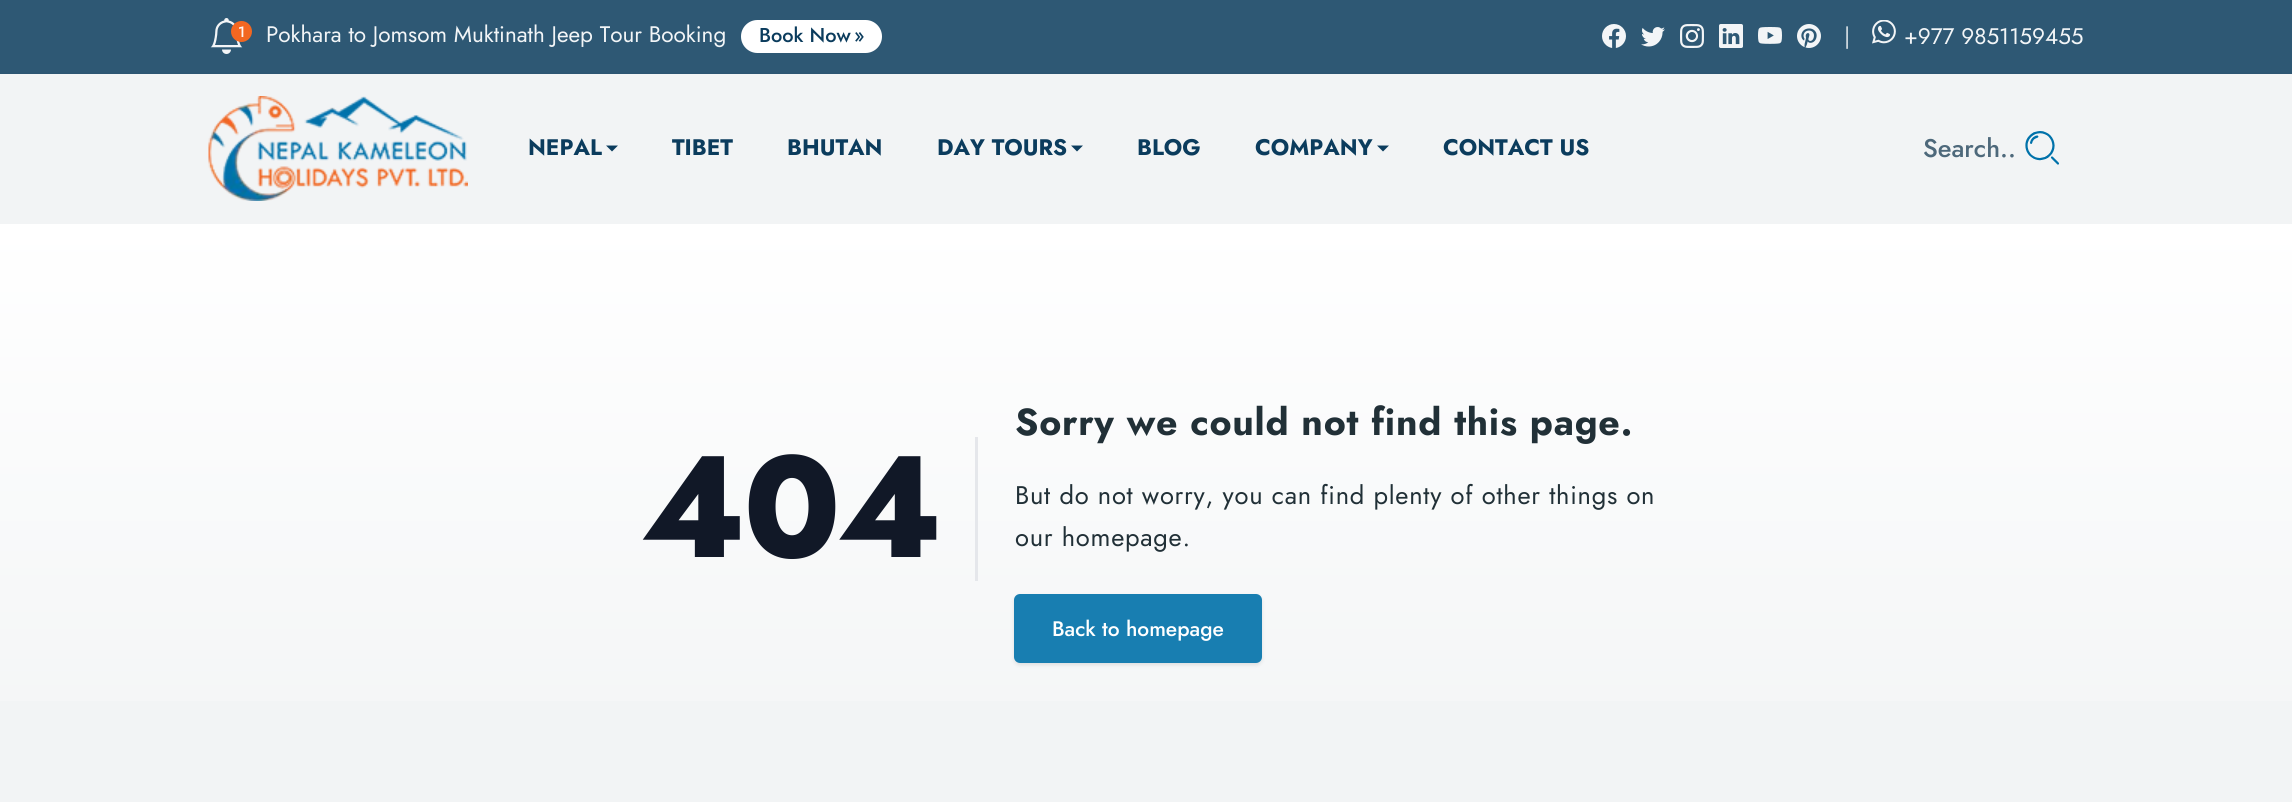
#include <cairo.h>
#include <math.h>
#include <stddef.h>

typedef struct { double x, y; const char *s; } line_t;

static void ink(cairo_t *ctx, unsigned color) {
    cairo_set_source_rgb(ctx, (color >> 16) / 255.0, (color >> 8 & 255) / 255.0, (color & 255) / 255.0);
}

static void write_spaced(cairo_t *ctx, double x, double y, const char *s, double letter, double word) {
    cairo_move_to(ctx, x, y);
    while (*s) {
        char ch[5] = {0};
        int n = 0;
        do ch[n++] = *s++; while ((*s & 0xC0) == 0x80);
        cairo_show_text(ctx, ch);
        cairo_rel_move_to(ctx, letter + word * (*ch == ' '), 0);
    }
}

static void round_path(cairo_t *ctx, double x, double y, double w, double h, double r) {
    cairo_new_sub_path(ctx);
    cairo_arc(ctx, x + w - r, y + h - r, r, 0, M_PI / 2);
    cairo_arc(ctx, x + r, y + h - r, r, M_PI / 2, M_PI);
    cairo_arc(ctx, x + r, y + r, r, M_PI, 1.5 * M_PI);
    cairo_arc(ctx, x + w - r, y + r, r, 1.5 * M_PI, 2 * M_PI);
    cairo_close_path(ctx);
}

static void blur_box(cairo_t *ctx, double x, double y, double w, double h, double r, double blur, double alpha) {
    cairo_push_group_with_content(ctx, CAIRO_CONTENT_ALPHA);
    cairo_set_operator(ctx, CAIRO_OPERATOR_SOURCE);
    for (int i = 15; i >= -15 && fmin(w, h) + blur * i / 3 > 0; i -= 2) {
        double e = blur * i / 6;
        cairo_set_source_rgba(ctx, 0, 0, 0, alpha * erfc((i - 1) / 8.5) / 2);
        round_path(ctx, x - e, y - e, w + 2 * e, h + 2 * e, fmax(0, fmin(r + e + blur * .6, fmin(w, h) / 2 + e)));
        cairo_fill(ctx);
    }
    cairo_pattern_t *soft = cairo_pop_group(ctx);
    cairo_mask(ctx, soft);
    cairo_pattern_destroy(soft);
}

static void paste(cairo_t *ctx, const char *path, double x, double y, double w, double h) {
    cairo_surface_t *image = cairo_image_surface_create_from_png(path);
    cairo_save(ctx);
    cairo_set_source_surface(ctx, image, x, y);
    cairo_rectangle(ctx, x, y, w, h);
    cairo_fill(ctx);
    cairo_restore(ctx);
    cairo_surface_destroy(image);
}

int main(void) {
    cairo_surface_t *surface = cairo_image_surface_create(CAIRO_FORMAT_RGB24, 2292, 802);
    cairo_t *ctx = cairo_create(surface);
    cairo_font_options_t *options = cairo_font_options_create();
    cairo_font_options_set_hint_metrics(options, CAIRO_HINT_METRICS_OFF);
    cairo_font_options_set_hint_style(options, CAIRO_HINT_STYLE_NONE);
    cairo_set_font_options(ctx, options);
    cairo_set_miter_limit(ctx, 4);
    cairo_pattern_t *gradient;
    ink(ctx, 0xF2F4F5);
    cairo_paint(ctx);
    ink(ctx, 0x2E5874);
    cairo_rectangle(ctx, 0, 0, 2292, 74);
    cairo_fill(ctx);
    paste(ctx, "media/1.png", 210, 18, 33, 36);
    ink(ctx, 0xF26721);
    cairo_arc(ctx, 241.5, 31.5, 10.5, 0, 2 * M_PI);
    cairo_fill(ctx);
    cairo_select_font_face(ctx, "Jost Medium", CAIRO_FONT_SLANT_NORMAL, CAIRO_FONT_WEIGHT_NORMAL);
    cairo_set_font_size(ctx, 15);
    ink(ctx, 0xFEF6F2);
    cairo_move_to(ctx, 238, 37);
    cairo_show_text(ctx, "1");
    cairo_select_font_face(ctx, "Jost", CAIRO_FONT_SLANT_NORMAL, CAIRO_FONT_WEIGHT_NORMAL);
    cairo_set_font_size(ctx, 22.5);
    ink(ctx, 0xF2F5F7);
    cairo_move_to(ctx, 266, 42);
    cairo_show_text(ctx, "Pokhara to Jomsom Muktinath Jeep Tour Booking");
    ink(ctx, 0xFFFFFF);
    round_path(ctx, 741, 20, 141, 33, 16.5);
    cairo_fill(ctx);
    cairo_select_font_face(ctx, "Jost Medium", CAIRO_FONT_SLANT_NORMAL, CAIRO_FONT_WEIGHT_NORMAL);
    cairo_set_font_size(ctx, 20);
    ink(ctx, 0x0B3C5D);
    cairo_move_to(ctx, 759, 42);
    cairo_show_text(ctx, "Book Now");
    cairo_move_to(ctx, 854, 42);
    cairo_show_text(ctx, "»");
    paste(ctx, "media/2.png", 1602, 24, 24, 24);
    paste(ctx, "media/3.png", 1641, 27, 24, 20);
    paste(ctx, "media/4.png", 1680, 24, 24, 24);
    paste(ctx, "media/5.png", 1719, 24, 24, 24);
    paste(ctx, "media/6.png", 1758, 27, 24, 17);
    paste(ctx, "media/7.png", 1797, 24, 24, 24);
    cairo_select_font_face(ctx, "Jost", CAIRO_FONT_SLANT_NORMAL, CAIRO_FONT_WEIGHT_NORMAL);
    cairo_set_font_size(ctx, 22.5);
    ink(ctx, 0xD5DDE3);
    cairo_move_to(ctx, 1844, 44);
    cairo_show_text(ctx, "|");
    paste(ctx, "media/8.png", 1872, 20, 24, 24);
    ink(ctx, 0xF2F5F7);
    cairo_move_to(ctx, 1904, 44);
    cairo_show_text(ctx, "+977 9851159455");
    cairo_save(ctx);
    cairo_set_fill_rule(ctx, CAIRO_FILL_RULE_EVEN_ODD);
    cairo_new_path(ctx);
    cairo_move_to(ctx, 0, 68);
    cairo_line_to(ctx, 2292, 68);
    cairo_line_to(ctx, 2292, 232);
    cairo_line_to(ctx, 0, 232);
    cairo_close_path(ctx);
    cairo_move_to(ctx, 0, 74);
    cairo_line_to(ctx, 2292, 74);
    cairo_line_to(ctx, 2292, 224);
    cairo_line_to(ctx, 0, 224);
    cairo_close_path(ctx);
    cairo_clip(ctx);
    ink(ctx, 0x000000);
    blur_box(ctx, 0, 75, 2292, 150, 0, 2, 0.1);
    cairo_restore(ctx);
    paste(ctx, "media/9.png", 208, 96, 260, 105);
    cairo_select_font_face(ctx, "Jost", CAIRO_FONT_SLANT_NORMAL, CAIRO_FONT_WEIGHT_BOLD);
    ink(ctx, 0x0B3C5D);
    cairo_move_to(ctx, 528, 155);
    cairo_show_text(ctx, "NEPAL");
    cairo_new_path(ctx);
    cairo_move_to(ctx, 606, 145.5);
    cairo_line_to(ctx, 618, 145.5);
    cairo_line_to(ctx, 612, 151.5);
    cairo_close_path(ctx);
    cairo_fill(ctx);
    {
        static const line_t items[] = {
            {672, 155, "TIBET"},
            {787, 155, "BHUTAN"},
            {937, 155, "DAY TOURS"},
        };
        for (size_t i = 0; i < sizeof items / sizeof *items; i++) {
            cairo_move_to(ctx, items[i].x, items[i].y);
            cairo_show_text(ctx, items[i].s);
        }
    }
    cairo_new_path(ctx);
    cairo_move_to(ctx, 1071, 145.5);
    cairo_line_to(ctx, 1083, 145.5);
    cairo_line_to(ctx, 1077, 151.5);
    cairo_close_path(ctx);
    cairo_fill(ctx);
    cairo_move_to(ctx, 1137, 155);
    cairo_show_text(ctx, "BLOG");
    cairo_move_to(ctx, 1255, 155);
    cairo_show_text(ctx, "COMPANY");
    cairo_new_path(ctx);
    cairo_move_to(ctx, 1377, 145.5);
    cairo_line_to(ctx, 1389, 145.5);
    cairo_line_to(ctx, 1383, 151.5);
    cairo_close_path(ctx);
    cairo_fill(ctx);
    cairo_move_to(ctx, 1443, 155);
    cairo_show_text(ctx, "CONTACT US");
    cairo_select_font_face(ctx, "Jost Medium", CAIRO_FONT_SLANT_NORMAL, CAIRO_FONT_WEIGHT_NORMAL);
    cairo_set_font_size(ctx, 25.5);
    ink(ctx, 0x4E697B);
    cairo_move_to(ctx, 1923, 157);
    cairo_show_text(ctx, "Search..");
    paste(ctx, "media/10.png", 2025, 131, 34, 34);
    gradient = cairo_pattern_create_linear(1146, 223, 1146, 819);
    cairo_pattern_add_color_stop_rgba(gradient, 0, 1, 1, 1, 1);
    cairo_pattern_add_color_stop_rgba(gradient, 1, 1, 1, 1, 0);
    cairo_set_source(ctx, gradient);
    cairo_pattern_destroy(gradient);
    cairo_rectangle(ctx, 0, 224, 2292, 477);
    cairo_fill(ctx);
    ink(ctx, 0xE5E7EB);
    cairo_rectangle(ctx, 975, 437, 3, 144);
    cairo_fill(ctx);
    cairo_select_font_face(ctx, "Jost ExtraBold", CAIRO_FONT_SLANT_NORMAL, CAIRO_FONT_WEIGHT_NORMAL);
    cairo_set_font_size(ctx, 144);
    ink(ctx, 0x111827);
    write_spaced(ctx, 641, 557, "404", -3.5, 0);
    cairo_select_font_face(ctx, "Jost", CAIRO_FONT_SLANT_NORMAL, CAIRO_FONT_WEIGHT_BOLD);
    cairo_set_font_size(ctx, 37.5);
    ink(ctx, 0x213037);
    write_spaced(ctx, 1015, 435, "Sorry we could not find this page.", 0.75, 0);
    cairo_select_font_face(ctx, "Jost", CAIRO_FONT_SLANT_NORMAL, CAIRO_FONT_WEIGHT_NORMAL);
    cairo_set_font_size(ctx, 25.5);
    write_spaced(ctx, 1015, 504, "But do not worry, you can find plenty of other things on", 0.75, 0);
    write_spaced(ctx, 1015, 546, "our homepage.", 0.75, 0);
    cairo_save(ctx);
    cairo_set_fill_rule(ctx, CAIRO_FILL_RULE_EVEN_ODD);
    cairo_new_path(ctx);
    cairo_move_to(ctx, 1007, 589);
    cairo_line_to(ctx, 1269, 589);
    cairo_line_to(ctx, 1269, 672);
    cairo_line_to(ctx, 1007, 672);
    cairo_close_path(ctx);
    cairo_move_to(ctx, 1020, 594);
    cairo_line_to(ctx, 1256, 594);
    cairo_curve_to(ctx, 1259.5, 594, 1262, 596.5, 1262, 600);
    cairo_line_to(ctx, 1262, 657);
    cairo_curve_to(ctx, 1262, 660.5, 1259.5, 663, 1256, 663);
    cairo_line_to(ctx, 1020, 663);
    cairo_curve_to(ctx, 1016.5, 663, 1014, 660.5, 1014, 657);
    cairo_line_to(ctx, 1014, 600);
    cairo_curve_to(ctx, 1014, 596.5, 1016.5, 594, 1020, 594);
    cairo_close_path(ctx);
    cairo_clip(ctx);
    ink(ctx, 0x000000);
    blur_box(ctx, 1014, 596, 248, 69, 6, 2, 0.1);
    cairo_restore(ctx);
    cairo_set_source_rgba(ctx, 0, 0.447, 0.667, 0.9);
    round_path(ctx, 1014, 594, 248, 69, 6);
    cairo_fill(ctx);
    cairo_select_font_face(ctx, "Jost Medium", CAIRO_FONT_SLANT_NORMAL, CAIRO_FONT_WEIGHT_NORMAL);
    cairo_set_font_size(ctx, 21);
    ink(ctx, 0xFFFFFF);
    cairo_move_to(ctx, 1052, 636);
    cairo_show_text(ctx, "Back to homepage");
    cairo_surface_write_to_png(surface, "image.png");
    cairo_font_options_destroy(options);
    cairo_destroy(ctx);
    cairo_surface_destroy(surface);
    return 0;
}
